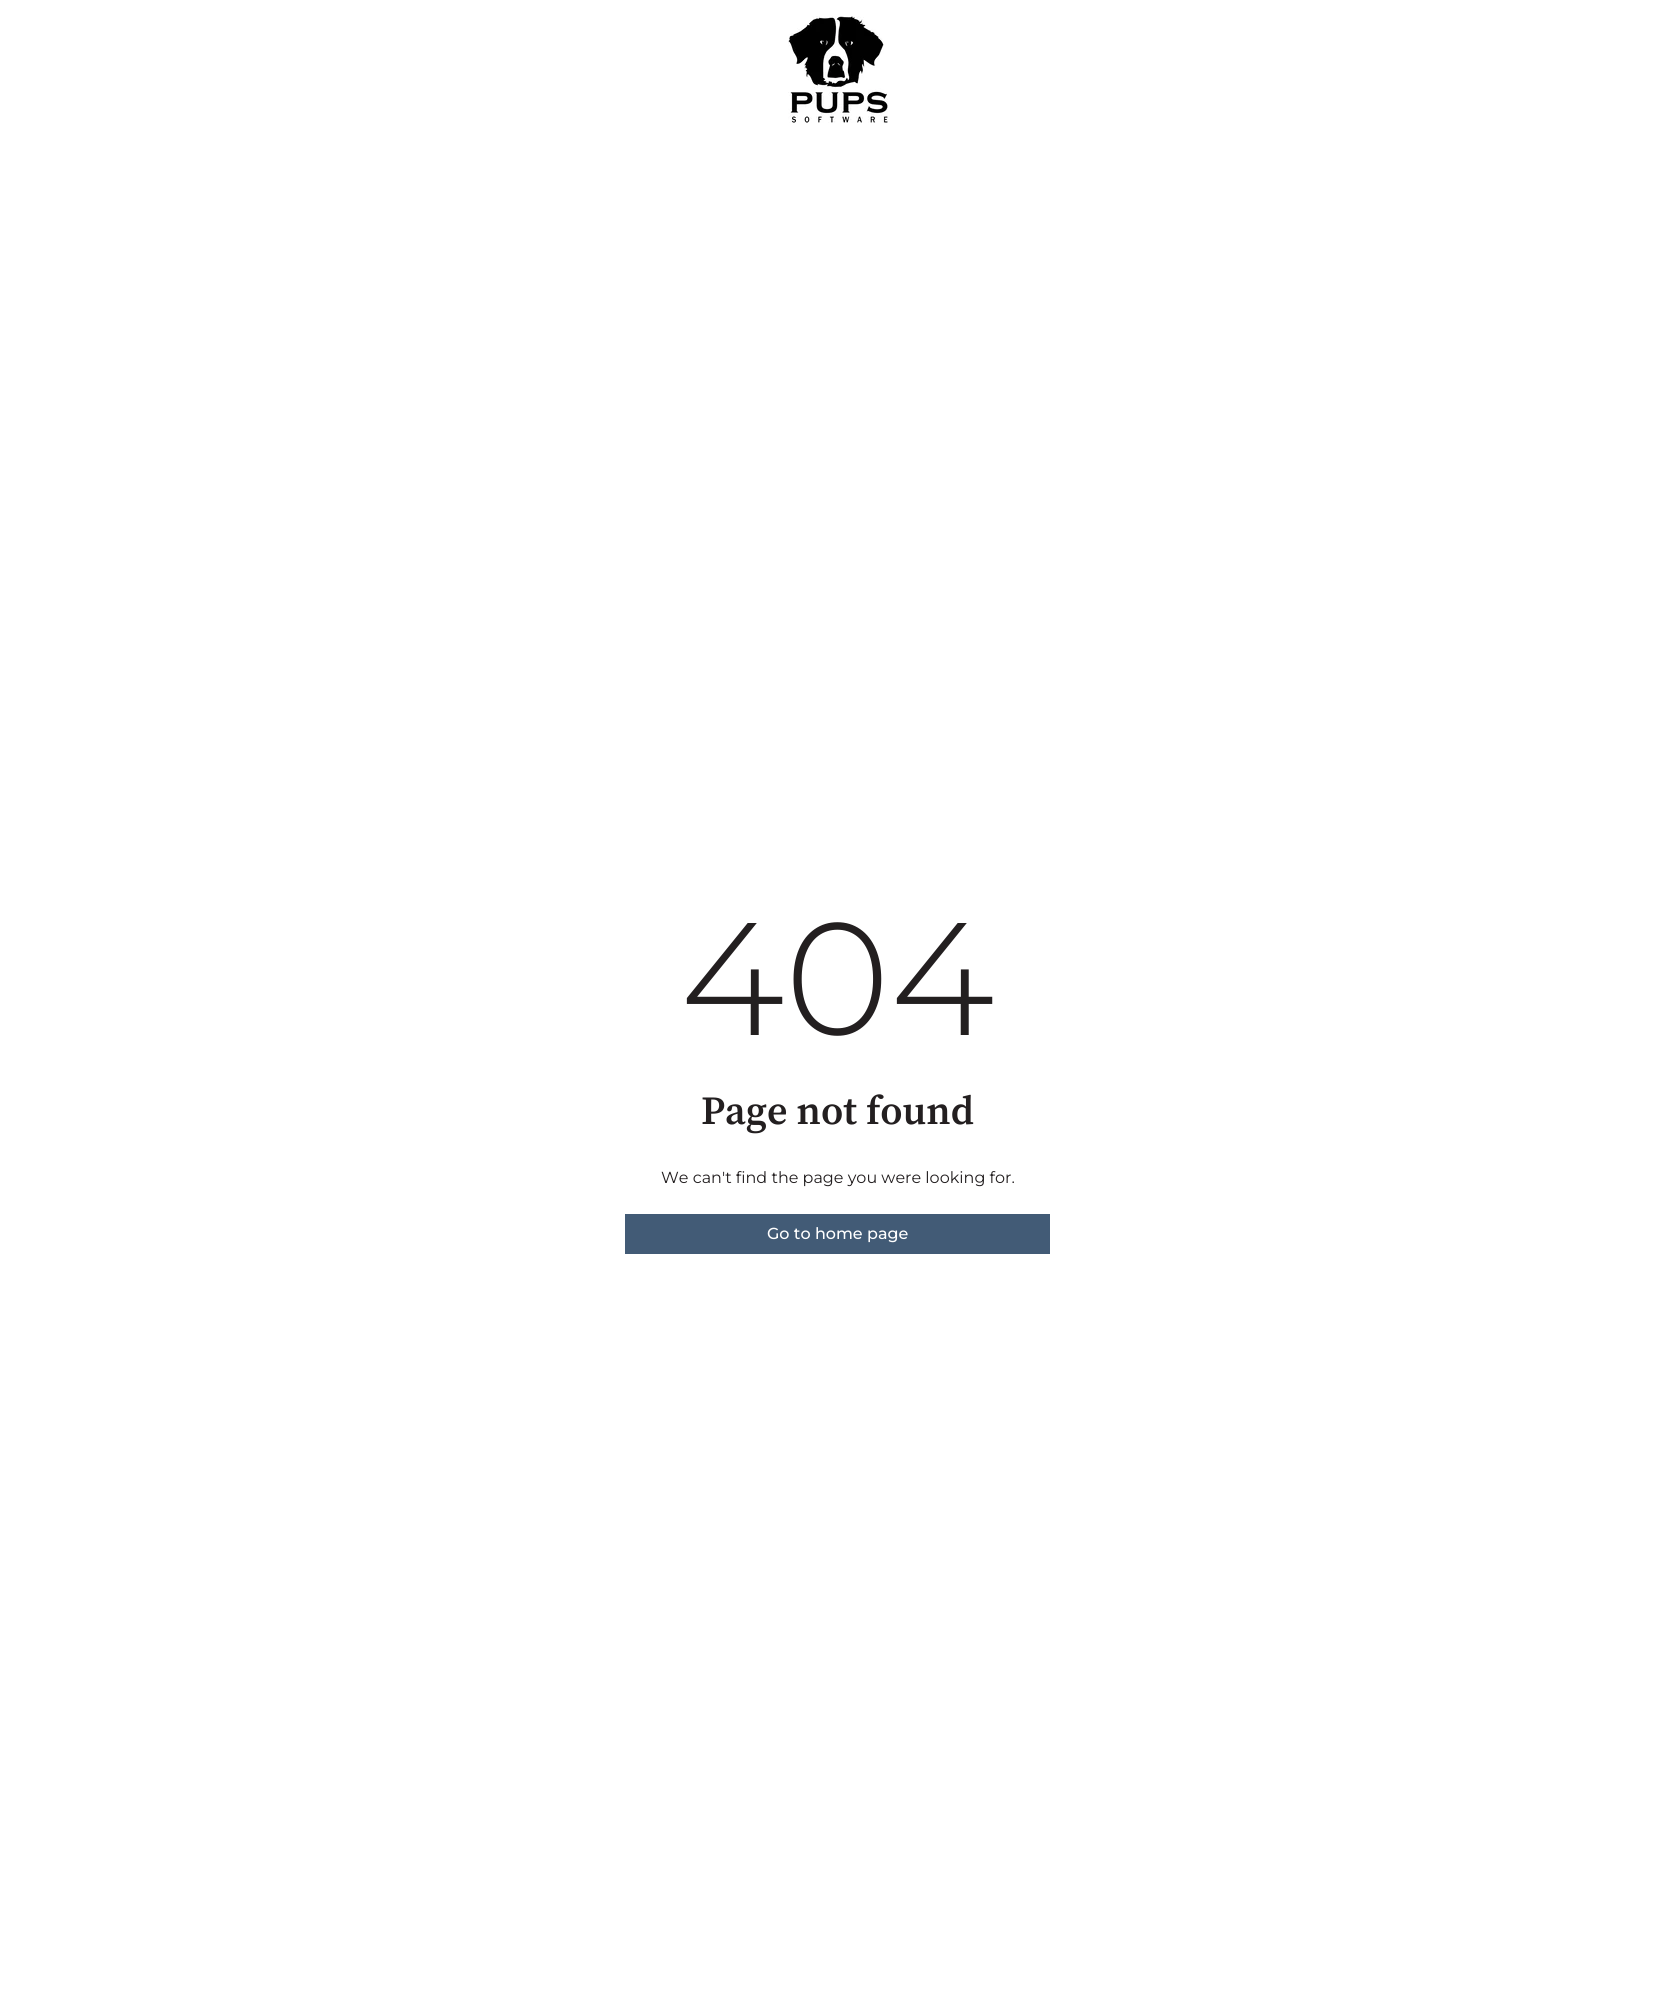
#include <cairo.h>
#include <math.h>
#include <stddef.h>


static void ink(cairo_t *ctx, unsigned color) {
    cairo_set_source_rgb(ctx, (color >> 16) / 255.0, (color >> 8 & 255) / 255.0, (color & 255) / 255.0);
}

static void paste(cairo_t *ctx, const char *path, double x, double y, double w, double h) {
    cairo_surface_t *image = cairo_image_surface_create_from_png(path);
    cairo_save(ctx);
    cairo_set_source_surface(ctx, image, x, y);
    cairo_rectangle(ctx, x, y, w, h);
    cairo_fill(ctx);
    cairo_restore(ctx);
    cairo_surface_destroy(image);
}

int main(void) {
    cairo_surface_t *surface = cairo_image_surface_create(CAIRO_FORMAT_RGB24, 1675, 2012);
    cairo_t *ctx = cairo_create(surface);
    cairo_font_options_t *options = cairo_font_options_create();
    cairo_font_options_set_hint_metrics(options, CAIRO_HINT_METRICS_OFF);
    cairo_font_options_set_hint_style(options, CAIRO_HINT_STYLE_NONE);
    cairo_set_font_options(ctx, options);
    cairo_set_miter_limit(ctx, 4);
    ink(ctx, 0xFFFFFF);
    cairo_paint(ctx);
    paste(ctx, "media/1.png", 788, 16, 100, 107);
    cairo_select_font_face(ctx, "Montserrat Light", CAIRO_FONT_SLANT_NORMAL, CAIRO_FONT_WEIGHT_NORMAL);
    cairo_set_font_size(ctx, 160);
    ink(ctx, 0x231F20);
    cairo_move_to(ctx, 680, 1035);
    cairo_show_text(ctx, "404");
    cairo_select_font_face(ctx, "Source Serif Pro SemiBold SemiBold", CAIRO_FONT_SLANT_NORMAL, CAIRO_FONT_WEIGHT_NORMAL);
    cairo_set_font_size(ctx, 40);
    cairo_move_to(ctx, 701, 1124);
    cairo_show_text(ctx, "Page not found");
    cairo_select_font_face(ctx, "Montserrat", CAIRO_FONT_SLANT_NORMAL, CAIRO_FONT_WEIGHT_NORMAL);
    cairo_set_font_size(ctx, 16);
    cairo_move_to(ctx, 661, 1183);
    cairo_show_text(ctx, "We can't find the page you were looking for.");
    ink(ctx, 0x425B76);
    cairo_rectangle(ctx, 625, 1214, 425, 40);
    cairo_fill(ctx);
    cairo_select_font_face(ctx, "Montserrat Medium", CAIRO_FONT_SLANT_NORMAL, CAIRO_FONT_WEIGHT_NORMAL);
    ink(ctx, 0xFFFFFF);
    cairo_move_to(ctx, 767, 1239);
    cairo_show_text(ctx, "Go to home page");
    cairo_surface_write_to_png(surface, "image.png");
    cairo_font_options_destroy(options);
    cairo_destroy(ctx);
    cairo_surface_destroy(surface);
    return 0;
}
